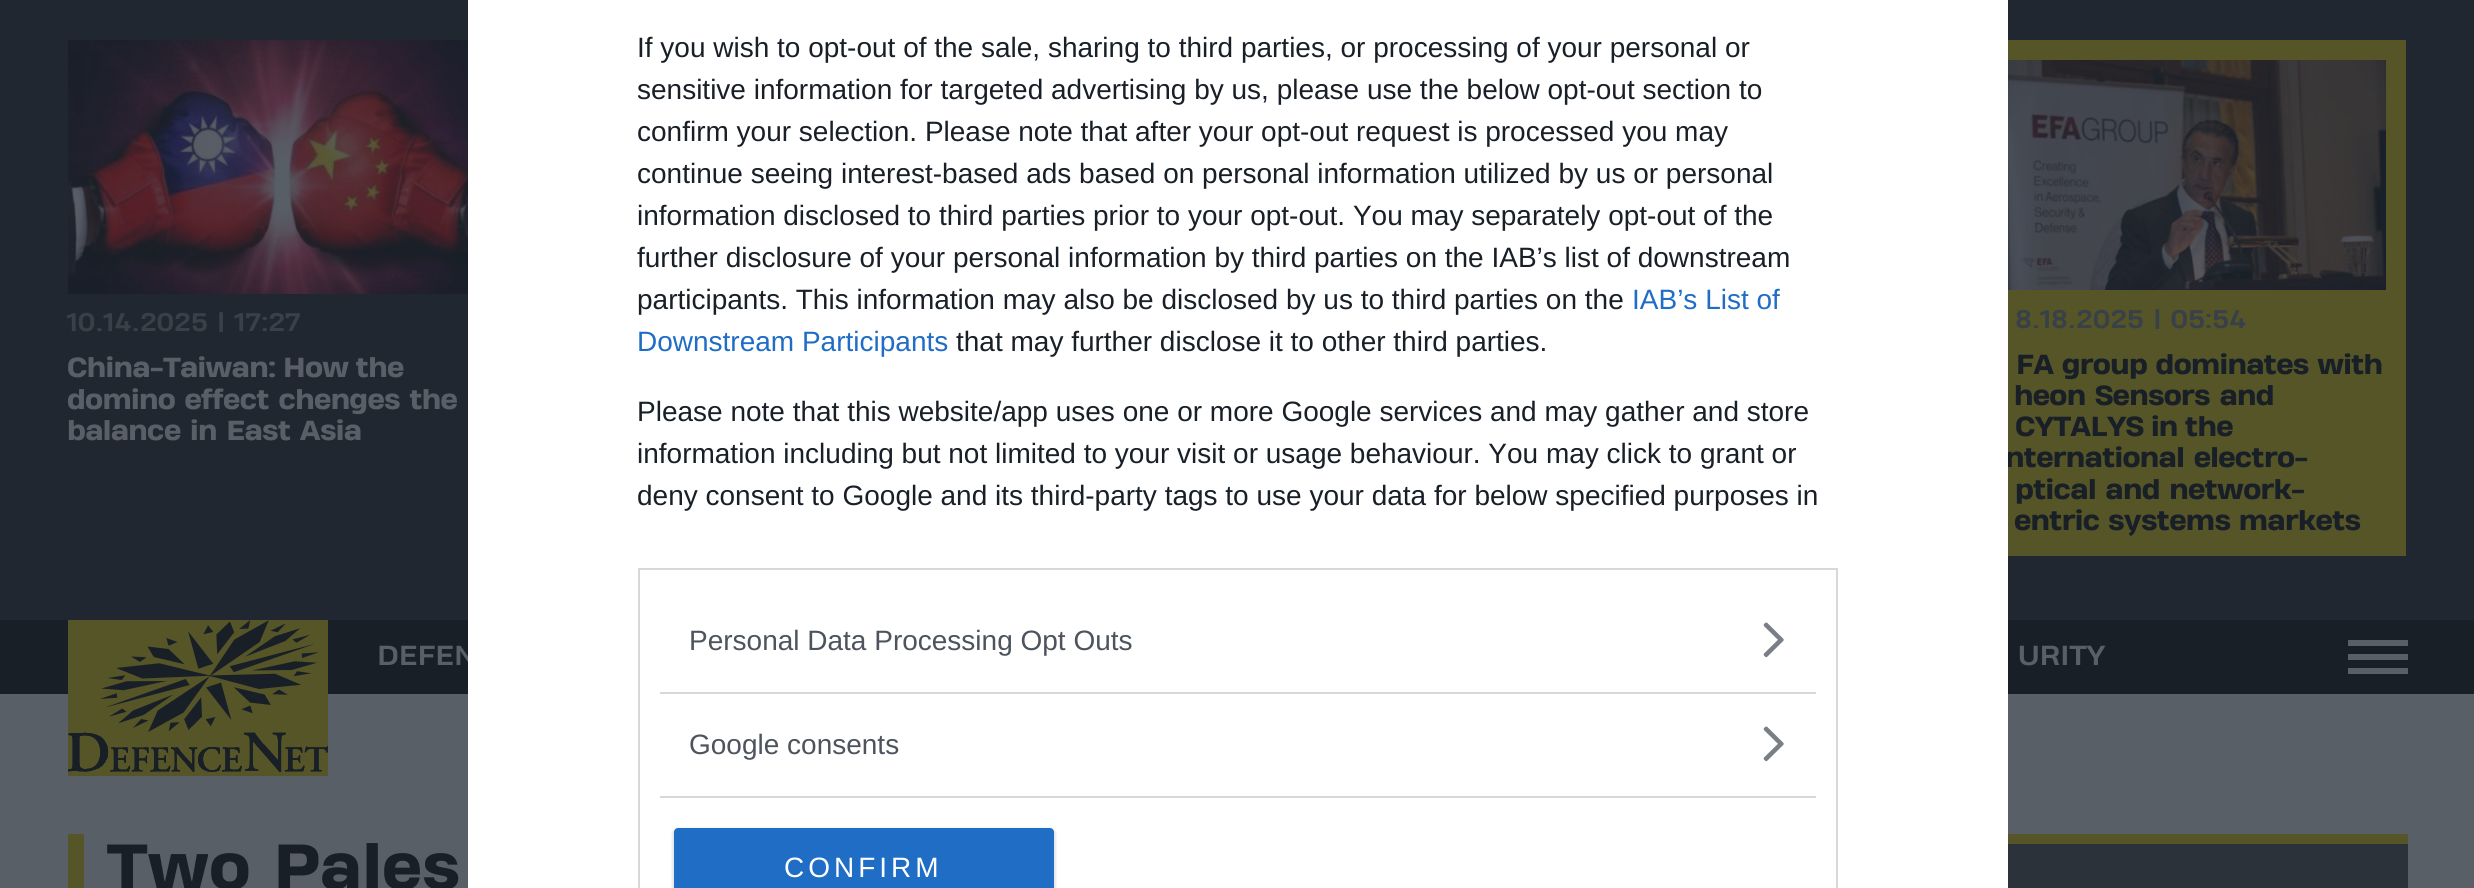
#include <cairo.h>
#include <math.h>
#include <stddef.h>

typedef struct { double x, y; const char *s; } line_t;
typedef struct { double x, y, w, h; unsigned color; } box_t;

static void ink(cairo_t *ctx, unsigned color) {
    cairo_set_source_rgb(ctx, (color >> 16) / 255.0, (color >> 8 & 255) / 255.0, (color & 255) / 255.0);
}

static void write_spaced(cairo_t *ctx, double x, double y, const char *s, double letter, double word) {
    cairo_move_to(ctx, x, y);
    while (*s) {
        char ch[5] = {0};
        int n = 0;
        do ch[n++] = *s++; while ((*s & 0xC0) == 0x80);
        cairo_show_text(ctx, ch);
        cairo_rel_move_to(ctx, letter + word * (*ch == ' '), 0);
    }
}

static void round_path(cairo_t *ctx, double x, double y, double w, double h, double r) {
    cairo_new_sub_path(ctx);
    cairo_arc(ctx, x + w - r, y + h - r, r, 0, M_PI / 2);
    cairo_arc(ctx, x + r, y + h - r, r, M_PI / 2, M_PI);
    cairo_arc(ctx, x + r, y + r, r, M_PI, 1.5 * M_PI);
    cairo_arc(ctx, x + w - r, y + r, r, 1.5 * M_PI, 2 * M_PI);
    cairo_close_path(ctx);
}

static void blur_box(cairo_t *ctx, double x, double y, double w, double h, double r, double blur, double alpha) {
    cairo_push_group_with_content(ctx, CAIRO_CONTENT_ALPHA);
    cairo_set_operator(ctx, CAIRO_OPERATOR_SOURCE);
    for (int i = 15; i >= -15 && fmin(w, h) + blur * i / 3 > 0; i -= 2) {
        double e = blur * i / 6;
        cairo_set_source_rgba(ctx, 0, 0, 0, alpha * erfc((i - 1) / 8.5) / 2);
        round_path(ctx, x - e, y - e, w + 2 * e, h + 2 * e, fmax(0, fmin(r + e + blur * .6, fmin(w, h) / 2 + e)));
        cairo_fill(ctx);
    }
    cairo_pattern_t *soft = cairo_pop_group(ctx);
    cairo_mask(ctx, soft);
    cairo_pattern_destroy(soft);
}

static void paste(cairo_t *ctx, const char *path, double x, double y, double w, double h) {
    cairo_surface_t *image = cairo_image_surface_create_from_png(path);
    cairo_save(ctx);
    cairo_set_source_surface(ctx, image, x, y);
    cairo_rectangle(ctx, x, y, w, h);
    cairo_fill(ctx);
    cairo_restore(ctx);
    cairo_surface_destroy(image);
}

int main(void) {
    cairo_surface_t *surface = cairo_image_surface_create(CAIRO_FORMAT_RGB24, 2474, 888);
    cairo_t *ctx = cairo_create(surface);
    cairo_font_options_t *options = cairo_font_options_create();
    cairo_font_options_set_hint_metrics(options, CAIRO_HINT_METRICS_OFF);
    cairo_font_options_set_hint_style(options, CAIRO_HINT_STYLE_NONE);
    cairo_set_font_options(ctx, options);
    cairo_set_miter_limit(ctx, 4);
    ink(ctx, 0x595F67);
    cairo_paint(ctx);
    ink(ctx, 0x212730);
    cairo_rectangle(ctx, 0, 0, 2474, 620);
    cairo_fill(ctx);
    ink(ctx, 0x555527);
    cairo_rectangle(ctx, 2008, 40, 398, 516);
    cairo_fill(ctx);
    cairo_select_font_face(ctx, "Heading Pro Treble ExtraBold", CAIRO_FONT_SLANT_NORMAL, CAIRO_FONT_WEIGHT_NORMAL);
    cairo_set_font_size(ctx, 26);
    ink(ctx, 0x191F27);
    write_spaced(ctx, 2005, 467, "nternational electro-", -0.7, 0);
    cairo_rectangle(ctx, 0, 620, 2474, 74);
    cairo_fill(ctx);
    cairo_select_font_face(ctx, "Heading Pro Treble", CAIRO_FONT_SLANT_NORMAL, CAIRO_FONT_WEIGHT_BOLD);
    ink(ctx, 0x595F67);
    cairo_move_to(ctx, 377, 665);
    cairo_show_text(ctx, "DEFEN");
    ink(ctx, 0x2C323A);
    cairo_rectangle(ctx, 2008, 844, 400, 44);
    cairo_fill(ctx);
    round_path(ctx, 1770, 886, 256, 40, 34);
    ink(ctx, 0x555527);
    cairo_set_line_width(ctx, 4);
    cairo_stroke(ctx);
    ink(ctx, 0xFFFFFF);
    cairo_rectangle(ctx, 468, 0, 1540, 888);
    cairo_fill(ctx);
    cairo_select_font_face(ctx, "Liberation Sans", CAIRO_FONT_SLANT_NORMAL, CAIRO_FONT_WEIGHT_NORMAL);
    cairo_set_font_size(ctx, 28);
    ink(ctx, 0x191F27);
    {
        static const line_t items[] = {
            {637, 57, "If you wish to opt-out of the sale, sharing to third parties, or processing of your personal or"},
            {637, 99, "sensitive information for targeted advertising by us, please use the below opt-out section to"},
            {637, 141, "confirm your selection. Please note that after your opt-out request is processed you may"},
            {637, 183, "continue seeing interest-based ads based on personal information utilized by us or personal"},
            {637, 225, "information disclosed to third parties prior to your opt-out. You may separately opt-out of the"},
            {637, 267, "further disclosure of your personal information by third parties on the IAB’s list of downstream"},
            {637, 309, "participants. This information may also be disclosed by us to third parties on the"},
        };
        for (size_t i = 0; i < sizeof items / sizeof *items; i++) {
            cairo_move_to(ctx, items[i].x, items[i].y);
            cairo_show_text(ctx, items[i].s);
        }
    }
    ink(ctx, 0x206DC5);
    cairo_move_to(ctx, 1632, 309);
    cairo_show_text(ctx, "IAB’s List of");
    cairo_move_to(ctx, 637, 351);
    cairo_show_text(ctx, "Downstream Participants");
    ink(ctx, 0x191F27);
    {
        static const line_t items[] = {
            {956, 351, "that may further disclose it to other third parties."},
            {637, 421, "Please note that this website/app uses one or more Google services and may gather and store"},
            {637, 463, "information including but not limited to your visit or usage behaviour. You may click to grant or"},
            {637, 505, "deny consent to Google and its third-party tags to use your data for below specified purposes in"},
        };
        for (size_t i = 0; i < sizeof items / sizeof *items; i++) {
            cairo_move_to(ctx, items[i].x, items[i].y);
            cairo_show_text(ctx, items[i].s);
        }
    }
    cairo_rectangle(ctx, 639, 569, 1198, 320);
    ink(ctx, 0xD8D8D8);
    cairo_set_line_width(ctx, 2);
    cairo_stroke(ctx);
    cairo_rectangle(ctx, 660, 692, 1156, 2);
    cairo_fill(ctx);
    ink(ctx, 0x4D545D);
    cairo_move_to(ctx, 689, 650);
    cairo_show_text(ctx, "Personal Data Processing Opt Outs");
    paste(ctx, "media/1.png", 1763, 622, 21, 36);
    ink(ctx, 0xD8D8D8);
    cairo_rectangle(ctx, 660, 796, 1156, 2);
    cairo_fill(ctx);
    ink(ctx, 0x4D545D);
    cairo_move_to(ctx, 689, 754);
    cairo_show_text(ctx, "Google consents");
    paste(ctx, "media/1.png", 1763, 726, 21, 36);
    ink(ctx, 0x000000);
    blur_box(ctx, 672, 828, 384, 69, 6, 1, 0.1);
    ink(ctx, 0x206DC5);
    cairo_new_path(ctx);
    cairo_move_to(ctx, 678, 828);
    cairo_line_to(ctx, 1050, 828);
    cairo_curve_to(ctx, 1052, 828, 1054, 830, 1054, 832);
    cairo_line_to(ctx, 1054, 888);
    cairo_line_to(ctx, 674, 888);
    cairo_line_to(ctx, 674, 832);
    cairo_curve_to(ctx, 674, 830, 676, 828, 678, 828);
    cairo_close_path(ctx);
    cairo_fill(ctx);
    ink(ctx, 0xFFFFFF);
    write_spaced(ctx, 784, 877, "CONFIRM", 4, 0);
    paste(ctx, "media/2.png", 68, 40, 400, 254);
    cairo_select_font_face(ctx, "Heading Pro Treble", CAIRO_FONT_SLANT_NORMAL, CAIRO_FONT_WEIGHT_BOLD);
    cairo_set_font_size(ctx, 24);
    ink(ctx, 0x394048);
    cairo_move_to(ctx, 67, 331);
    cairo_show_text(ctx, "10.14.2025 | 17:27");
    cairo_select_font_face(ctx, "Heading Pro Treble ExtraBold", CAIRO_FONT_SLANT_NORMAL, CAIRO_FONT_WEIGHT_NORMAL);
    cairo_set_font_size(ctx, 26);
    ink(ctx, 0x595F67);
    write_spaced(ctx, 67, 377, "China-Taiwan: How the", -0.7, -2);
    write_spaced(ctx, 67, 409, "domino effect chenges the", -0.7, 0);
    write_spaced(ctx, 67, 440, "balance in East Asia", -0.7, 0);
    paste(ctx, "media/3.png", 2008, 60, 378, 230);
    cairo_select_font_face(ctx, "Heading Pro Treble", CAIRO_FONT_SLANT_NORMAL, CAIRO_FONT_WEIGHT_BOLD);
    cairo_set_font_size(ctx, 24);
    ink(ctx, 0x394048);
    cairo_move_to(ctx, 2015, 328);
    cairo_show_text(ctx, "8.18.2025 | 05:54");
    cairo_select_font_face(ctx, "Heading Pro Treble ExtraBold", CAIRO_FONT_SLANT_NORMAL, CAIRO_FONT_WEIGHT_NORMAL);
    cairo_set_font_size(ctx, 26);
    ink(ctx, 0x191F27);
    write_spaced(ctx, 2016, 374, "FA group dominates with", -0.7, -1);
    write_spaced(ctx, 2014, 405, "heon Sensors and", -0.7, 0);
    write_spaced(ctx, 2015, 436, "CYTALYS in the", -0.7, -2);
    write_spaced(ctx, 2015, 499, "ptical and network-", -0.7, 0);
    write_spaced(ctx, 2014, 530, "entric systems markets", -0.7, -1);
    ink(ctx, 0x555527);
    cairo_rectangle(ctx, 68, 620, 260, 156);
    cairo_fill(ctx);
    paste(ctx, "media/4.png", 68, 620, 260, 152);
    cairo_select_font_face(ctx, "Heading Pro Treble", CAIRO_FONT_SLANT_NORMAL, CAIRO_FONT_WEIGHT_BOLD);
    ink(ctx, 0x595F67);
    cairo_move_to(ctx, 2018, 665);
    cairo_show_text(ctx, "URITY");
    {
        static const box_t items[] = {
            {2348, 640, 60, 6, 0x595F67},
            {2348, 654, 60, 6, 0x595F67},
            {2348, 668, 60, 6, 0x595F67},
            {68, 834, 16, 54, 0x555527},
        };
        for (size_t i = 0; i < sizeof items / sizeof *items; i++) {
            ink(ctx, items[i].color);
            cairo_rectangle(ctx, items[i].x, items[i].y, items[i].w, items[i].h);
            cairo_fill(ctx);
        }
    }
    cairo_select_font_face(ctx, "Heading Pro Treble ExtraBold", CAIRO_FONT_SLANT_NORMAL, CAIRO_FONT_WEIGHT_NORMAL);
    cairo_set_font_size(ctx, 60);
    ink(ctx, 0x191F27);
    write_spaced(ctx, 107, 889, "Two Pales", 0, -1);
    ink(ctx, 0x555527);
    cairo_rectangle(ctx, 2008, 834, 400, 10);
    cairo_fill(ctx);
    cairo_surface_write_to_png(surface, "image.png");
    cairo_font_options_destroy(options);
    cairo_destroy(ctx);
    cairo_surface_destroy(surface);
    return 0;
}
